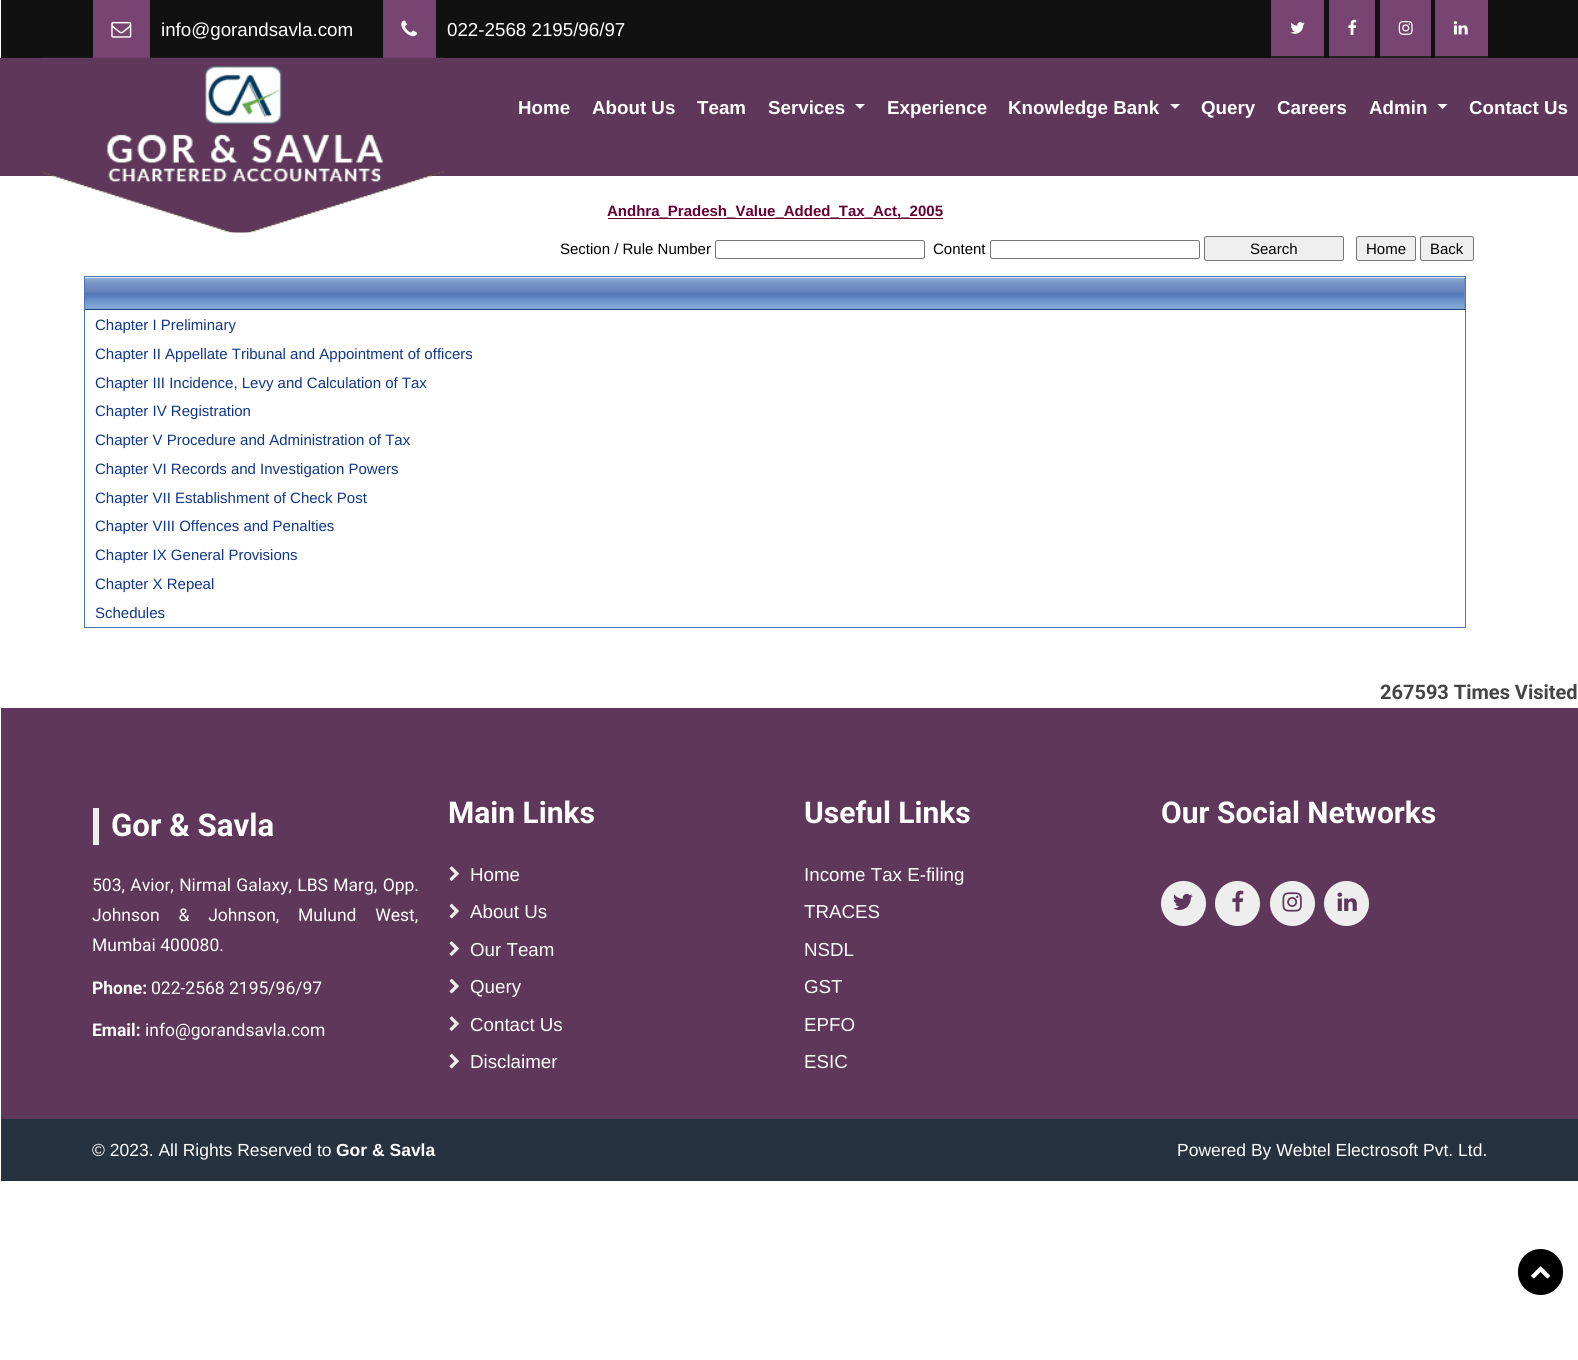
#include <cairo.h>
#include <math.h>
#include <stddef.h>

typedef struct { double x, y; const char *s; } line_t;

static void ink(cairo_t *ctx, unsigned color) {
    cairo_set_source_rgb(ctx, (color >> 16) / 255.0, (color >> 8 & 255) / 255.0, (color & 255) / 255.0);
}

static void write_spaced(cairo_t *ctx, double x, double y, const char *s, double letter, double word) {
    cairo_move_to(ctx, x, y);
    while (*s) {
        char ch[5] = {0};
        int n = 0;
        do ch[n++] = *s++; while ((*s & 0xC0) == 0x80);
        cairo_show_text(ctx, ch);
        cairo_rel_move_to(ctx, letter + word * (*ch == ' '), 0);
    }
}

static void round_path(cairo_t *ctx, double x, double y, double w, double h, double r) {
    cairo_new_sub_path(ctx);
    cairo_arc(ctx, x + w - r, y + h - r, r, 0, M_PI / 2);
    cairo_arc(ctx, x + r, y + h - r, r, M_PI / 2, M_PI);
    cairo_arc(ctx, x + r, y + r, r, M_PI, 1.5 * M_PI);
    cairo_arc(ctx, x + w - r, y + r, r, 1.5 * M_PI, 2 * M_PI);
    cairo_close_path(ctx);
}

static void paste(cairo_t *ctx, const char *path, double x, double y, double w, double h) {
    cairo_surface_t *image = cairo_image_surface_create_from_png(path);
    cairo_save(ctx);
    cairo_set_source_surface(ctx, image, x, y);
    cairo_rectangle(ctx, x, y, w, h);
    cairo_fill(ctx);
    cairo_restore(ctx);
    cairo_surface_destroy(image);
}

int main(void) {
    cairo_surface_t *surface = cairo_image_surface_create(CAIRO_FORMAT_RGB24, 1578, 1360);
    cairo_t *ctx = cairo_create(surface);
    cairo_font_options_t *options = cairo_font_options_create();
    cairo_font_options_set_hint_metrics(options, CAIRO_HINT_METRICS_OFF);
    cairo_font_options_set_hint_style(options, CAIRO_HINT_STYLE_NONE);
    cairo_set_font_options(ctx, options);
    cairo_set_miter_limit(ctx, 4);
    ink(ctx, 0xFFFFFF);
    cairo_paint(ctx);
    ink(ctx, 0x111111);
    cairo_rectangle(ctx, 1, 0, 1577, 58);
    cairo_fill(ctx);
    ink(ctx, 0x784472);
    cairo_rectangle(ctx, 93, 0, 57, 58);
    cairo_fill(ctx);
    paste(ctx, "media/1.png", 111, 21, 21, 17);
    cairo_select_font_face(ctx, "Liberation Sans", CAIRO_FONT_SLANT_NORMAL, CAIRO_FONT_WEIGHT_NORMAL);
    cairo_set_font_size(ctx, 18.75);
    ink(ctx, 0xFFFFFF);
    cairo_move_to(ctx, 161, 36);
    cairo_show_text(ctx, "info@gorandsavla.com");
    ink(ctx, 0x784472);
    cairo_rectangle(ctx, 383, 0, 53, 58);
    cairo_fill(ctx);
    paste(ctx, "media/2.png", 401, 20, 16, 17);
    ink(ctx, 0xFFFFFF);
    cairo_move_to(ctx, 447, 36);
    cairo_show_text(ctx, "022-2568 2195/96/97");
    ink(ctx, 0x784472);
    cairo_rectangle(ctx, 1271, 0, 53, 56);
    cairo_fill(ctx);
    paste(ctx, "media/3.png", 1290, 22, 15, 12);
    ink(ctx, 0x222222);
    cairo_rectangle(ctx, 1271, 56, 53, 2);
    cairo_fill(ctx);
    ink(ctx, 0x784472);
    cairo_rectangle(ctx, 1329, 0, 46, 56);
    cairo_fill(ctx);
    paste(ctx, "media/4.png", 1348, 19, 9, 16);
    ink(ctx, 0x222222);
    cairo_rectangle(ctx, 1329, 56, 46, 2);
    cairo_fill(ctx);
    ink(ctx, 0x784472);
    cairo_rectangle(ctx, 1380, 0, 51, 56);
    cairo_fill(ctx);
    paste(ctx, "media/5.png", 1398, 21, 15, 14);
    ink(ctx, 0x222222);
    cairo_rectangle(ctx, 1380, 56, 51, 2);
    cairo_fill(ctx);
    ink(ctx, 0x784472);
    cairo_rectangle(ctx, 1435, 0, 53, 56);
    cairo_fill(ctx);
    paste(ctx, "media/6.png", 1453, 21, 15, 14);
    ink(ctx, 0x222222);
    cairo_rectangle(ctx, 1435, 56, 53, 2);
    cairo_fill(ctx);
    ink(ctx, 0x5F375A);
    cairo_rectangle(ctx, 0, 58, 1578, 118);
    cairo_fill(ctx);
    paste(ctx, "media/7.png", 41, 57, 403, 176);
    cairo_select_font_face(ctx, "Liberation Sans", CAIRO_FONT_SLANT_NORMAL, CAIRO_FONT_WEIGHT_BOLD);
    ink(ctx, 0xFFFFFF);
    {
        static const line_t items[] = {
            {518, 114, "Home"},
            {592, 114, "About Us"},
            {697, 114, "Team"},
            {768, 114, "Services"},
        };
        for (size_t i = 0; i < sizeof items / sizeof *items; i++) {
            cairo_move_to(ctx, items[i].x, items[i].y);
            cairo_show_text(ctx, items[i].s);
        }
    }
    cairo_new_path(ctx);
    cairo_move_to(ctx, 855, 104);
    cairo_line_to(ctx, 865, 104);
    cairo_line_to(ctx, 860, 109);
    cairo_close_path(ctx);
    cairo_fill(ctx);
    cairo_move_to(ctx, 887, 114);
    cairo_show_text(ctx, "Experience");
    cairo_move_to(ctx, 1008, 114);
    cairo_show_text(ctx, "Knowledge Bank");
    cairo_new_path(ctx);
    cairo_move_to(ctx, 1170, 104);
    cairo_line_to(ctx, 1180, 104);
    cairo_line_to(ctx, 1175, 109);
    cairo_close_path(ctx);
    cairo_fill(ctx);
    {
        static const line_t items[] = {
            {1201, 114, "Query"},
            {1277, 114, "Careers"},
            {1369, 114, "Admin"},
        };
        for (size_t i = 0; i < sizeof items / sizeof *items; i++) {
            cairo_move_to(ctx, items[i].x, items[i].y);
            cairo_show_text(ctx, items[i].s);
        }
    }
    cairo_new_path(ctx);
    cairo_move_to(ctx, 1437.5, 104);
    cairo_line_to(ctx, 1447.5, 104);
    cairo_line_to(ctx, 1442.5, 109);
    cairo_close_path(ctx);
    cairo_fill(ctx);
    cairo_move_to(ctx, 1469, 114);
    cairo_show_text(ctx, "Contact Us");
    ink(ctx, 0x660033);
    cairo_rectangle(ctx, 608, 218, 335, 1);
    cairo_fill(ctx);
    cairo_set_font_size(ctx, 15);
    cairo_move_to(ctx, 607, 216);
    cairo_show_text(ctx, "Andhra_Pradesh_Value_Added_Tax_Act,_2005");
    cairo_select_font_face(ctx, "Liberation Sans", CAIRO_FONT_SLANT_NORMAL, CAIRO_FONT_WEIGHT_NORMAL);
    ink(ctx, 0x000000);
    cairo_move_to(ctx, 560, 254);
    cairo_show_text(ctx, "Section / Rule Number");
    round_path(ctx, 715.5, 240.5, 209, 18, 2);
    ink(ctx, 0x767676);
    cairo_set_line_width(ctx, 1);
    cairo_stroke(ctx);
    ink(ctx, 0x000000);
    cairo_move_to(ctx, 933, 254);
    cairo_show_text(ctx, "Content");
    round_path(ctx, 990.5, 240.5, 209, 18, 2);
    ink(ctx, 0x767676);
    cairo_stroke(ctx);
    ink(ctx, 0xEFEFEF);
    round_path(ctx, 1204.5, 236.5, 139, 24, 2);
    cairo_fill_preserve(ctx);
    ink(ctx, 0x767676);
    cairo_stroke(ctx);
    ink(ctx, 0x000000);
    cairo_move_to(ctx, 1250, 254);
    cairo_show_text(ctx, "Search");
    ink(ctx, 0xEFEFEF);
    round_path(ctx, 1356.5, 236.5, 59, 24, 2);
    cairo_fill_preserve(ctx);
    ink(ctx, 0x767676);
    cairo_stroke(ctx);
    ink(ctx, 0x000000);
    cairo_move_to(ctx, 1366, 254);
    cairo_show_text(ctx, "Home");
    ink(ctx, 0xEFEFEF);
    round_path(ctx, 1420.5, 236.5, 53, 24, 2);
    cairo_fill_preserve(ctx);
    ink(ctx, 0x767676);
    cairo_stroke(ctx);
    ink(ctx, 0x000000);
    cairo_move_to(ctx, 1430, 254);
    cairo_show_text(ctx, "Back");
    cairo_rectangle(ctx, 84.5, 276.5, 1381, 351);
    ink(ctx, 0x4E75B3);
    cairo_stroke(ctx);
    ink(ctx, 0x7FA5D7);
    cairo_rectangle(ctx, 85, 305, 1379, 4);
    cairo_fill(ctx);
    paste(ctx, "media/8.png", 85, 277, 1380, 28);
    ink(ctx, 0x6E8EC2);
    cairo_rectangle(ctx, 1464, 278, 1, 32);
    cairo_fill(ctx);
    ink(ctx, 0x204582);
    cairo_rectangle(ctx, 85, 309, 1380, 1);
    cairo_fill(ctx);
    ink(ctx, 0x0F3789);
    {
        static const line_t items[] = {
            {95, 330, "Chapter I Preliminary"},
            {95, 359, "Chapter II Appellate Tribunal and Appointment of officers"},
            {95, 388, "Chapter III Incidence, Levy and Calculation of Tax"},
            {95, 416, "Chapter IV Registration"},
            {95, 445, "Chapter V Procedure and Administration of Tax"},
            {95, 474, "Chapter VI Records and Investigation Powers"},
            {95, 503, "Chapter VII Establishment of Check Post"},
            {95, 531, "Chapter VIII Offences and Penalties"},
            {95, 560, "Chapter IX General Provisions"},
            {95, 589, "Chapter X Repeal"},
            {95, 618, "Schedules"},
        };
        for (size_t i = 0; i < sizeof items / sizeof *items; i++) {
            cairo_move_to(ctx, items[i].x, items[i].y);
            cairo_show_text(ctx, items[i].s);
        }
    }
    cairo_select_font_face(ctx, "Roboto", CAIRO_FONT_SLANT_NORMAL, CAIRO_FONT_WEIGHT_BOLD);
    cairo_set_font_size(ctx, 20);
    ink(ctx, 0x444444);
    cairo_move_to(ctx, 1380, 699);
    cairo_show_text(ctx, "267593 Times Visited");
    ink(ctx, 0x5F375A);
    cairo_rectangle(ctx, 1, 708, 1577, 411);
    cairo_fill(ctx);
    ink(ctx, 0xEEEEEE);
    cairo_rectangle(ctx, 93, 808, 6, 37);
    cairo_fill(ctx);
    cairo_set_font_size(ctx, 31.25);
    ink(ctx, 0xFFFFFF);
    cairo_move_to(ctx, 111, 836);
    cairo_show_text(ctx, "Gor & Savla");
    cairo_select_font_face(ctx, "Roboto", CAIRO_FONT_SLANT_NORMAL, CAIRO_FONT_WEIGHT_NORMAL);
    cairo_set_font_size(ctx, 17.5);
    write_spaced(ctx, 92, 891, "503, Avior, Nirmal Galaxy, LBS Marg, Opp.", 0, 1);
    write_spaced(ctx, 92, 921, "Johnson & Johnson, Mulund West,", 0, 14.5);
    cairo_move_to(ctx, 92, 951);
    cairo_show_text(ctx, "Mumbai 400080.");
    cairo_select_font_face(ctx, "Roboto", CAIRO_FONT_SLANT_NORMAL, CAIRO_FONT_WEIGHT_BOLD);
    cairo_move_to(ctx, 92, 994);
    cairo_show_text(ctx, "Phone:");
    cairo_select_font_face(ctx, "Roboto", CAIRO_FONT_SLANT_NORMAL, CAIRO_FONT_WEIGHT_NORMAL);
    cairo_move_to(ctx, 151, 994);
    cairo_show_text(ctx, "022-2568 2195/96/97");
    cairo_select_font_face(ctx, "Roboto", CAIRO_FONT_SLANT_NORMAL, CAIRO_FONT_WEIGHT_BOLD);
    cairo_move_to(ctx, 92, 1036);
    cairo_show_text(ctx, "Email:");
    cairo_select_font_face(ctx, "Roboto", CAIRO_FONT_SLANT_NORMAL, CAIRO_FONT_WEIGHT_NORMAL);
    cairo_move_to(ctx, 145, 1036);
    cairo_show_text(ctx, "info@gorandsavla.com");
    cairo_select_font_face(ctx, "Roboto", CAIRO_FONT_SLANT_NORMAL, CAIRO_FONT_WEIGHT_BOLD);
    cairo_set_font_size(ctx, 30);
    cairo_move_to(ctx, 448, 823);
    cairo_show_text(ctx, "Main Links");
    paste(ctx, "media/9.png", 449, 866, 10, 15);
    cairo_select_font_face(ctx, "Liberation Sans", CAIRO_FONT_SLANT_NORMAL, CAIRO_FONT_WEIGHT_NORMAL);
    cairo_set_font_size(ctx, 18.75);
    cairo_move_to(ctx, 470, 881);
    cairo_show_text(ctx, "Home");
    paste(ctx, "media/10.png", 449, 903, 10, 16);
    cairo_move_to(ctx, 470, 918);
    cairo_show_text(ctx, "About Us");
    paste(ctx, "media/9.png", 449, 941, 10, 15);
    cairo_move_to(ctx, 470, 956);
    cairo_show_text(ctx, "Our Team");
    paste(ctx, "media/10.png", 449, 978, 10, 16);
    cairo_move_to(ctx, 470, 993);
    cairo_show_text(ctx, "Query");
    paste(ctx, "media/9.png", 449, 1016, 10, 15);
    cairo_move_to(ctx, 470, 1031);
    cairo_show_text(ctx, "Contact Us");
    paste(ctx, "media/10.png", 449, 1053, 10, 16);
    cairo_move_to(ctx, 470, 1068);
    cairo_show_text(ctx, "Disclaimer");
    cairo_select_font_face(ctx, "Roboto", CAIRO_FONT_SLANT_NORMAL, CAIRO_FONT_WEIGHT_BOLD);
    cairo_set_font_size(ctx, 30);
    cairo_move_to(ctx, 804, 823);
    cairo_show_text(ctx, "Useful Links");
    cairo_select_font_face(ctx, "Liberation Sans", CAIRO_FONT_SLANT_NORMAL, CAIRO_FONT_WEIGHT_NORMAL);
    cairo_set_font_size(ctx, 18.75);
    {
        static const line_t items[] = {
            {804, 881, "Income Tax E-filing"},
            {804, 918, "TRACES"},
            {804, 956, "NSDL"},
            {804, 993, "GST"},
            {804, 1031, "EPFO"},
            {804, 1068, "ESIC"},
        };
        for (size_t i = 0; i < sizeof items / sizeof *items; i++) {
            cairo_move_to(ctx, items[i].x, items[i].y);
            cairo_show_text(ctx, items[i].s);
        }
    }
    cairo_select_font_face(ctx, "Roboto", CAIRO_FONT_SLANT_NORMAL, CAIRO_FONT_WEIGHT_BOLD);
    cairo_set_font_size(ctx, 30);
    cairo_move_to(ctx, 1161, 823);
    cairo_show_text(ctx, "Our Social Networks");
    ink(ctx, 0xEEEEEE);
    cairo_new_path(ctx);
    cairo_arc(ctx, 1183.5, 903.5, 22.5, 0, 2 * M_PI);
    cairo_fill(ctx);
    paste(ctx, "media/11.png", 1173, 893, 20, 17);
    cairo_arc(ctx, 1237.5, 903.5, 22.5, 0, 2 * M_PI);
    cairo_fill(ctx);
    paste(ctx, "media/12.png", 1232, 890, 12, 22);
    cairo_arc(ctx, 1292.5, 903.5, 22.5, 0, 2 * M_PI);
    cairo_fill(ctx);
    paste(ctx, "media/13.png", 1282, 892, 20, 20);
    cairo_arc(ctx, 1346.5, 903.5, 22.5, 0, 2 * M_PI);
    cairo_fill(ctx);
    paste(ctx, "media/14.png", 1337, 892, 20, 19);
    ink(ctx, 0x263240);
    cairo_rectangle(ctx, 1, 1119, 1577, 62);
    cairo_fill(ctx);
    cairo_select_font_face(ctx, "Liberation Sans", CAIRO_FONT_SLANT_NORMAL, CAIRO_FONT_WEIGHT_NORMAL);
    cairo_set_font_size(ctx, 17.5);
    ink(ctx, 0xFFFFFF);
    cairo_move_to(ctx, 92, 1156);
    cairo_show_text(ctx, "© 2023. All Rights Reserved to");
    cairo_select_font_face(ctx, "Liberation Sans", CAIRO_FONT_SLANT_NORMAL, CAIRO_FONT_WEIGHT_BOLD);
    cairo_move_to(ctx, 336, 1156);
    cairo_show_text(ctx, "Gor & Savla");
    cairo_select_font_face(ctx, "Liberation Sans", CAIRO_FONT_SLANT_NORMAL, CAIRO_FONT_WEIGHT_NORMAL);
    cairo_move_to(ctx, 1177, 1156);
    cairo_show_text(ctx, "Powered By Webtel Electrosoft Pvt. Ltd.");
    ink(ctx, 0x000000);
    round_path(ctx, 1516.5, 1247.5, 48, 49, 24);
    cairo_fill_preserve(ctx);
    ink(ctx, 0xFFFFFF);
    cairo_set_line_width(ctx, 3);
    cairo_stroke(ctx);
    paste(ctx, "media/15.png", 1531, 1266, 19, 13);
    cairo_surface_write_to_png(surface, "image.png");
    cairo_font_options_destroy(options);
    cairo_destroy(ctx);
    cairo_surface_destroy(surface);
    return 0;
}
